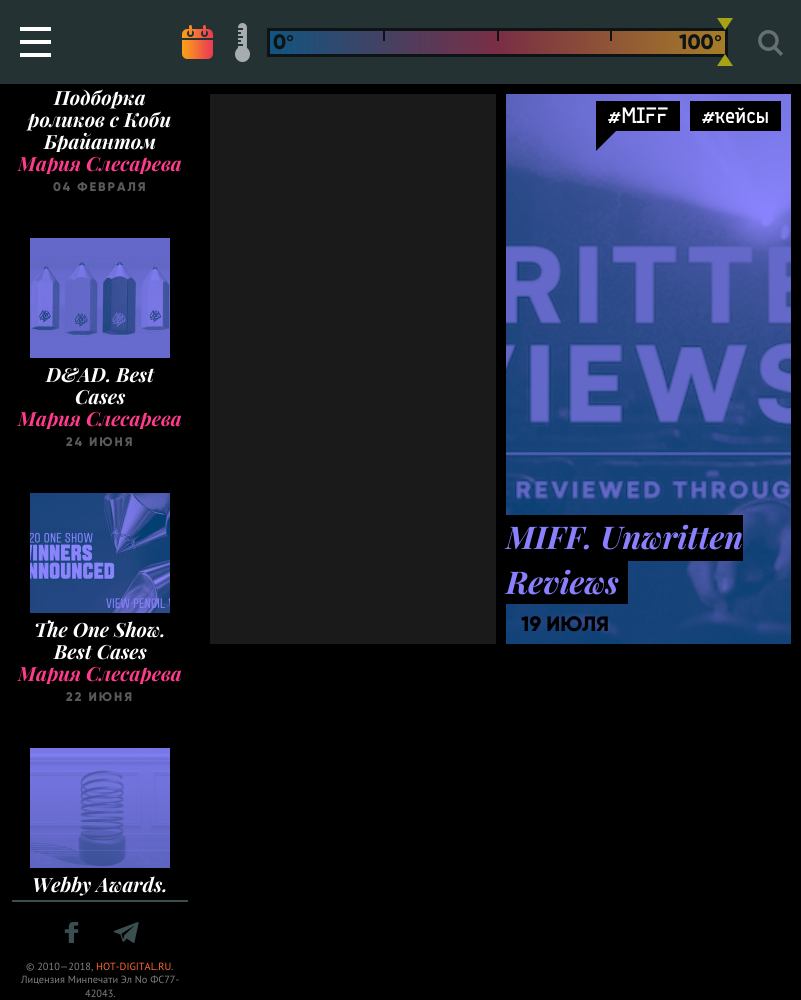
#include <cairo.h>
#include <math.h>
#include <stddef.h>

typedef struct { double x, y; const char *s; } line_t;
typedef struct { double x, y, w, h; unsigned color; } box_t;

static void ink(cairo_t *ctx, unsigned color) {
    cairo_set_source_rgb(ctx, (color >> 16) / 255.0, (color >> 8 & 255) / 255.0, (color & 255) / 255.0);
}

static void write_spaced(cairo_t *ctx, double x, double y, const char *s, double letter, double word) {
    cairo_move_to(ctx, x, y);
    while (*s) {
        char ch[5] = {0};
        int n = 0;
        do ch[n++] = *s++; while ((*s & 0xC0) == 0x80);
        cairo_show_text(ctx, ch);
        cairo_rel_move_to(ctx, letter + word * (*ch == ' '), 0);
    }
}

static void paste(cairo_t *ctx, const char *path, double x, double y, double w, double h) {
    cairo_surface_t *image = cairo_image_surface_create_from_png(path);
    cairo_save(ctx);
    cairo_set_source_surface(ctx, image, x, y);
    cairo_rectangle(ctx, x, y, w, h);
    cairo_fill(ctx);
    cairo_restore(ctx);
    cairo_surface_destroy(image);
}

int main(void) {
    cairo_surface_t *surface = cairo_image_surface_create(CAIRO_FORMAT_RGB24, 801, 1000);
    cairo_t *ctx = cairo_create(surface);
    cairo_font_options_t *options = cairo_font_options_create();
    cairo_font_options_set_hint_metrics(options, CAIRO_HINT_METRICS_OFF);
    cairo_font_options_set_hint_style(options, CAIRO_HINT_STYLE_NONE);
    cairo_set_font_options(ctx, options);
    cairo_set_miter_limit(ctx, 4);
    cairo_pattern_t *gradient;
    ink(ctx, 0x000000);
    cairo_paint(ctx);
    {
        static const box_t items[] = {
            {0, 0, 801, 84, 0x243234},
            {20, 40, 31, 4, 0xFFFFFF},
            {20, 27, 31, 4, 0xFFFFFF},
            {20, 53, 31, 4, 0xFFFFFF},
        };
        for (size_t i = 0; i < sizeof items / sizeof *items; i++) {
            ink(ctx, items[i].color);
            cairo_rectangle(ctx, items[i].x, items[i].y, items[i].w, items[i].h);
            cairo_fill(ctx);
        }
    }
    paste(ctx, "media/1.png", 182, 25, 31, 34);
    paste(ctx, "media/2.png", 235, 23, 15, 39);
    gradient = cairo_pattern_create_linear(270, 43, 725, 42);
    cairo_pattern_add_color_stop_rgba(gradient, 0, 0.063, 0.333, 0.502, 1);
    cairo_pattern_add_color_stop_rgba(gradient, 0.5, 0.475, 0.18, 0.271, 1);
    cairo_pattern_add_color_stop_rgba(gradient, 1, 0.651, 0.49, 0.153, 1);
    cairo_set_source(ctx, gradient);
    cairo_pattern_destroy(gradient);
    cairo_rectangle(ctx, 270, 31, 455, 23);
    cairo_fill(ctx);
    cairo_rectangle(ctx, 268.5, 29.5, 458, 26);
    ink(ctx, 0x0E1415);
    cairo_set_line_width(ctx, 3);
    cairo_stroke(ctx);
    cairo_select_font_face(ctx, "Gilroy ExtraBold", CAIRO_FONT_SLANT_NORMAL, CAIRO_FONT_WEIGHT_NORMAL);
    cairo_set_font_size(ctx, 20);
    cairo_move_to(ctx, 273, 49);
    cairo_show_text(ctx, "0");
    cairo_select_font_face(ctx, "Liberation Sans", CAIRO_FONT_SLANT_NORMAL, CAIRO_FONT_WEIGHT_BOLD);
    cairo_move_to(ctx, 286, 49);
    cairo_show_text(ctx, "°");
    {
        static const box_t items[] = {
            {383, 31, 2, 10, 0x0E1415},
            {497, 31, 2, 10, 0x0E1415},
            {610, 31, 2, 10, 0x0E1415},
        };
        for (size_t i = 0; i < sizeof items / sizeof *items; i++) {
            ink(ctx, items[i].color);
            cairo_rectangle(ctx, items[i].x, items[i].y, items[i].w, items[i].h);
            cairo_fill(ctx);
        }
    }
    cairo_select_font_face(ctx, "Gilroy ExtraBold", CAIRO_FONT_SLANT_NORMAL, CAIRO_FONT_WEIGHT_NORMAL);
    cairo_move_to(ctx, 679, 49);
    cairo_show_text(ctx, "100");
    cairo_select_font_face(ctx, "Liberation Sans", CAIRO_FONT_SLANT_NORMAL, CAIRO_FONT_WEIGHT_BOLD);
    cairo_move_to(ctx, 714, 49);
    cairo_show_text(ctx, "°");
    ink(ctx, 0xA7A315);
    cairo_new_path(ctx);
    cairo_move_to(ctx, 717, 18);
    cairo_line_to(ctx, 733, 18);
    cairo_line_to(ctx, 725, 30);
    cairo_close_path(ctx);
    cairo_move_to(ctx, 733, 66);
    cairo_line_to(ctx, 717, 66);
    cairo_line_to(ctx, 725, 54);
    cairo_close_path(ctx);
    cairo_fill(ctx);
    paste(ctx, "media/3.png", 758, 30, 25, 26);
    cairo_select_font_face(ctx, "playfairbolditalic", CAIRO_FONT_SLANT_ITALIC, CAIRO_FONT_WEIGHT_BOLD);
    ink(ctx, 0xFFFFFF);
    cairo_move_to(ctx, 54, 105);
    cairo_show_text(ctx, "Подборка");
    cairo_move_to(ctx, 28, 127);
    cairo_show_text(ctx, "роликов с Коби");
    cairo_save(ctx);
    cairo_rectangle(ctx, 10, 84, 180, 68);
    cairo_clip(ctx);
    cairo_move_to(ctx, 44, 149);
    cairo_show_text(ctx, "Брайантом");
    cairo_restore(ctx);
    cairo_save(ctx);
    cairo_rectangle(ctx, 10, 152, 180, 22);
    cairo_clip(ctx);
    ink(ctx, 0xFF3C8C);
    cairo_move_to(ctx, 18, 171);
    cairo_show_text(ctx, "Мария Слесарева");
    cairo_restore(ctx);
    cairo_select_font_face(ctx, "Gilroy ExtraBold", CAIRO_FONT_SLANT_NORMAL, CAIRO_FONT_WEIGHT_NORMAL);
    cairo_set_font_size(ctx, 12);
    ink(ctx, 0x5A5A5A);
    write_spaced(ctx, 53, 191, "04 ФЕВРАЛЯ", 2, 0);
    paste(ctx, "media/4.png", 30, 238, 140, 120);
    cairo_select_font_face(ctx, "playfairbolditalic", CAIRO_FONT_SLANT_ITALIC, CAIRO_FONT_WEIGHT_BOLD);
    cairo_set_font_size(ctx, 20);
    ink(ctx, 0xFFFFFF);
    cairo_move_to(ctx, 46, 382);
    cairo_show_text(ctx, "D&AD. Best");
    cairo_move_to(ctx, 75, 404);
    cairo_show_text(ctx, "Cases");
    cairo_save(ctx);
    cairo_rectangle(ctx, 10, 407, 180, 22);
    cairo_clip(ctx);
    ink(ctx, 0xFF3C8C);
    cairo_move_to(ctx, 18, 426);
    cairo_show_text(ctx, "Мария Слесарева");
    cairo_restore(ctx);
    cairo_select_font_face(ctx, "Gilroy ExtraBold", CAIRO_FONT_SLANT_NORMAL, CAIRO_FONT_WEIGHT_NORMAL);
    cairo_set_font_size(ctx, 12);
    ink(ctx, 0x5A5A5A);
    write_spaced(ctx, 66, 446, "24 ИЮНЯ", 2, 0);
    paste(ctx, "media/5.png", 30, 493, 140, 120);
    cairo_select_font_face(ctx, "playfairbolditalic", CAIRO_FONT_SLANT_ITALIC, CAIRO_FONT_WEIGHT_BOLD);
    cairo_set_font_size(ctx, 20);
    ink(ctx, 0xFFFFFF);
    cairo_move_to(ctx, 34, 637);
    cairo_show_text(ctx, "The One Show.");
    cairo_move_to(ctx, 54, 659);
    cairo_show_text(ctx, "Best Cases");
    cairo_save(ctx);
    cairo_rectangle(ctx, 10, 662, 180, 22);
    cairo_clip(ctx);
    ink(ctx, 0xFF3C8C);
    cairo_move_to(ctx, 18, 681);
    cairo_show_text(ctx, "Мария Слесарева");
    cairo_restore(ctx);
    cairo_select_font_face(ctx, "Gilroy ExtraBold", CAIRO_FONT_SLANT_NORMAL, CAIRO_FONT_WEIGHT_NORMAL);
    cairo_set_font_size(ctx, 12);
    ink(ctx, 0x5A5A5A);
    write_spaced(ctx, 66, 701, "22 ИЮНЯ", 2, 0);
    paste(ctx, "media/6.png", 30, 748, 140, 120);
    cairo_select_font_face(ctx, "playfairbolditalic", CAIRO_FONT_SLANT_ITALIC, CAIRO_FONT_WEIGHT_BOLD);
    cairo_set_font_size(ctx, 20);
    ink(ctx, 0xFFFFFF);
    cairo_move_to(ctx, 32, 892);
    cairo_show_text(ctx, "Webby Awards.");
    ink(ctx, 0x3B4E50);
    cairo_rectangle(ctx, 12, 900, 176, 2);
    cairo_fill(ctx);
    paste(ctx, "media/7.png", 64, 922, 15, 21);
    paste(ctx, "media/8.png", 113, 922, 26, 21);
    cairo_select_font_face(ctx, "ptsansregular", CAIRO_FONT_SLANT_NORMAL, CAIRO_FONT_WEIGHT_NORMAL);
    cairo_set_font_size(ctx, 10);
    ink(ctx, 0x808080);
    cairo_move_to(ctx, 26, 970);
    cairo_show_text(ctx, "© 2010—2018,");
    ink(ctx, 0xFF6734);
    cairo_move_to(ctx, 96, 970);
    cairo_show_text(ctx, "HOT-DIGITAL.RU");
    ink(ctx, 0x808080);
    {
        static const line_t items[] = {
            {171, 970, "."},
            {21, 983, "Лицензия Минпечати Эл No ФС77-"},
            {85, 997, "42043."},
        };
        for (size_t i = 0; i < sizeof items / sizeof *items; i++) {
            cairo_move_to(ctx, items[i].x, items[i].y);
            cairo_show_text(ctx, items[i].s);
        }
    }
    ink(ctx, 0x1A1A1A);
    cairo_rectangle(ctx, 210, 94, 286, 550);
    cairo_fill(ctx);
    paste(ctx, "media/9.png", 506, 94, 285, 550);
    ink(ctx, 0x000000);
    cairo_rectangle(ctx, 596, 101, 84, 30);
    cairo_fill(ctx);
    cairo_select_font_face(ctx, "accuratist", CAIRO_FONT_SLANT_NORMAL, CAIRO_FONT_WEIGHT_NORMAL);
    cairo_set_font_size(ctx, 21);
    ink(ctx, 0xFFFFFF);
    cairo_move_to(ctx, 608, 123);
    cairo_show_text(ctx, "#MIFF");
    ink(ctx, 0x000000);
    cairo_new_path(ctx);
    cairo_move_to(ctx, 596, 131);
    cairo_line_to(ctx, 616, 131);
    cairo_line_to(ctx, 596, 151);
    cairo_close_path(ctx);
    cairo_fill(ctx);
    cairo_rectangle(ctx, 690, 101, 91, 30);
    cairo_fill(ctx);
    ink(ctx, 0xFFFFFF);
    cairo_move_to(ctx, 702, 123);
    cairo_show_text(ctx, "#кейсы");
    ink(ctx, 0x000000);
    cairo_rectangle(ctx, 506, 515, 237, 46);
    cairo_fill(ctx);
    cairo_select_font_face(ctx, "playfairbolditalic", CAIRO_FONT_SLANT_ITALIC, CAIRO_FONT_WEIGHT_BOLD);
    cairo_set_font_size(ctx, 32);
    ink(ctx, 0x8A80FF);
    cairo_move_to(ctx, 506, 549);
    cairo_show_text(ctx, "MIFF. Unwritten");
    ink(ctx, 0x000000);
    cairo_rectangle(ctx, 506, 561, 122, 43);
    cairo_fill(ctx);
    ink(ctx, 0x8A80FF);
    cairo_move_to(ctx, 506, 594);
    cairo_show_text(ctx, "Reviews");
    cairo_select_font_face(ctx, "Gilroy ExtraBold", CAIRO_FONT_SLANT_NORMAL, CAIRO_FONT_WEIGHT_NORMAL);
    cairo_set_font_size(ctx, 20);
    ink(ctx, 0x000000);
    cairo_move_to(ctx, 521, 631);
    cairo_show_text(ctx, "19 ИЮЛЯ");
    cairo_surface_write_to_png(surface, "image.png");
    cairo_font_options_destroy(options);
    cairo_destroy(ctx);
    cairo_surface_destroy(surface);
    return 0;
}
